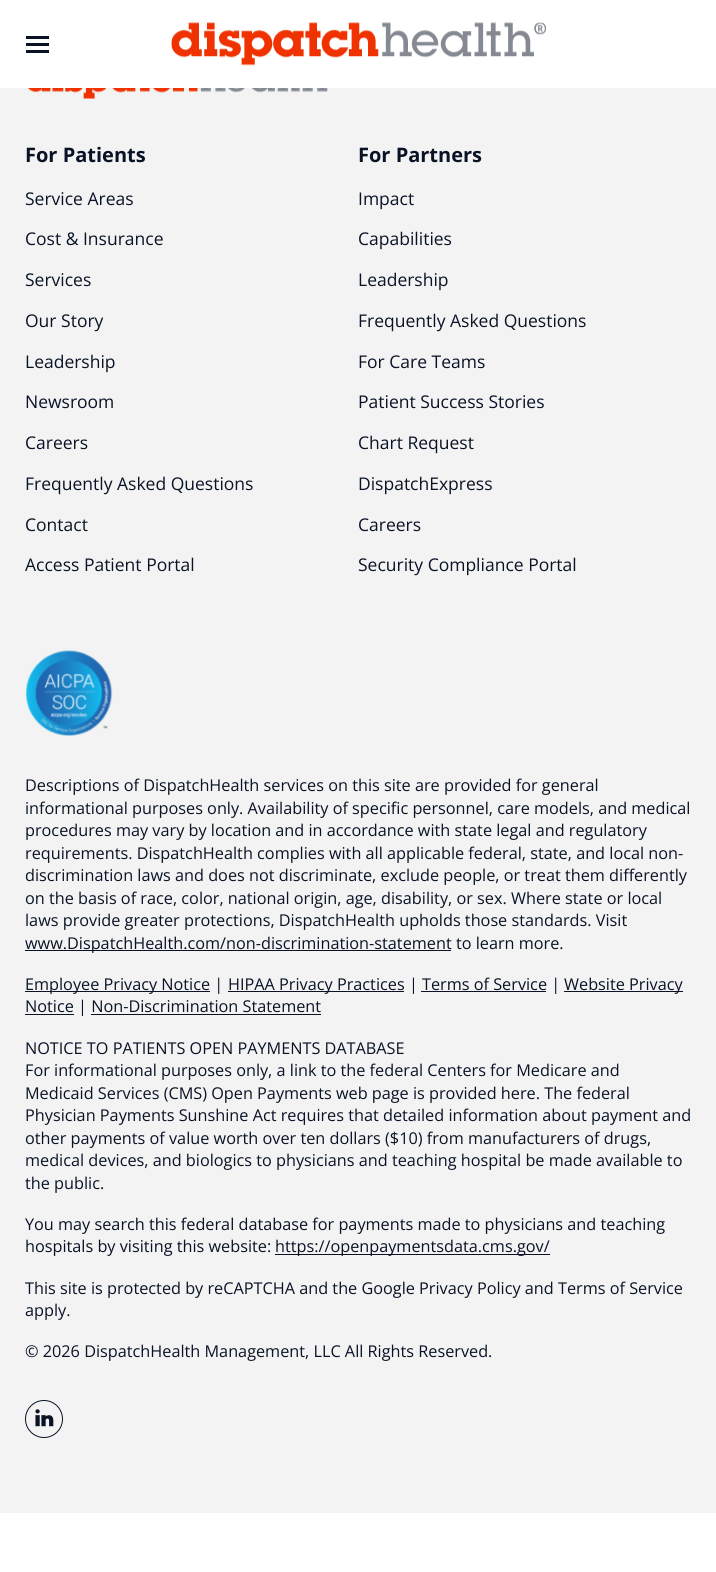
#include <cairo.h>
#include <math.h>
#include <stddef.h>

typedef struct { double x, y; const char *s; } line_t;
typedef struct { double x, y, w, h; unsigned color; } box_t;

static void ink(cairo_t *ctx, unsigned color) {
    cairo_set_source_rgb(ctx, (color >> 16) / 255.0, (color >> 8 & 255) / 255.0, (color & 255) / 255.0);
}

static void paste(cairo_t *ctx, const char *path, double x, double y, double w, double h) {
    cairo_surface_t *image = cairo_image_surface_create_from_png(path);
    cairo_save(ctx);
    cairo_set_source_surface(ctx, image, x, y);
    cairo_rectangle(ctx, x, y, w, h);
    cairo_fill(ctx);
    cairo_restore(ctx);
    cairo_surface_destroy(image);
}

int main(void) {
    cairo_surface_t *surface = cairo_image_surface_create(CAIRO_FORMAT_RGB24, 716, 1572);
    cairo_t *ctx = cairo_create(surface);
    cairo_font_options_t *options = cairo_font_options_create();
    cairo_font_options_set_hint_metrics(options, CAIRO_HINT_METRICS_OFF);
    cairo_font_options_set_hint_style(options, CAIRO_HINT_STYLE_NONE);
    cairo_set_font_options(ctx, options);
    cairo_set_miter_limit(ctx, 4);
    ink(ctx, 0xFFFFFF);
    cairo_paint(ctx);
    {
        static const box_t items[] = {
            {26, 36, 23, 3, 0x091325},
            {26, 43, 23, 3, 0x091325},
            {26, 50, 23, 3, 0x091325},
        };
        for (size_t i = 0; i < sizeof items / sizeof *items; i++) {
            ink(ctx, items[i].color);
            cairo_rectangle(ctx, items[i].x, items[i].y, items[i].w, items[i].h);
            cairo_fill(ctx);
        }
    }
    paste(ctx, "media/1.png", 171, 22, 375, 44);
    ink(ctx, 0xF3F3F4);
    cairo_rectangle(ctx, 0, 88, 716, 1425);
    cairo_fill(ctx);
    paste(ctx, "media/2.png", 27, 88, 301, 11);
    cairo_select_font_face(ctx, "Open Sans", CAIRO_FONT_SLANT_NORMAL, CAIRO_FONT_WEIGHT_BOLD);
    cairo_set_font_size(ctx, 20);
    ink(ctx, 0x091325);
    cairo_move_to(ctx, 25, 162);
    cairo_show_text(ctx, "For Patients");
    cairo_select_font_face(ctx, "Open Sans", CAIRO_FONT_SLANT_NORMAL, CAIRO_FONT_WEIGHT_NORMAL);
    cairo_set_font_size(ctx, 17.5);
    {
        static const line_t items[] = {
            {25, 205, "Service Areas"},
            {25, 245, "Cost & Insurance"},
            {25, 286, "Services"},
            {25, 327, "Our Story"},
            {25, 368, "Leadership"},
            {25, 408, "Newsroom"},
            {25, 449, "Careers"},
            {25, 490, "Frequently Asked Questions"},
            {25, 531, "Contact"},
            {25, 571, "Access Patient Portal"},
        };
        for (size_t i = 0; i < sizeof items / sizeof *items; i++) {
            cairo_move_to(ctx, items[i].x, items[i].y);
            cairo_show_text(ctx, items[i].s);
        }
    }
    cairo_select_font_face(ctx, "Open Sans", CAIRO_FONT_SLANT_NORMAL, CAIRO_FONT_WEIGHT_BOLD);
    cairo_set_font_size(ctx, 20);
    cairo_move_to(ctx, 358, 162);
    cairo_show_text(ctx, "For Partners");
    cairo_select_font_face(ctx, "Open Sans", CAIRO_FONT_SLANT_NORMAL, CAIRO_FONT_WEIGHT_NORMAL);
    cairo_set_font_size(ctx, 17.5);
    {
        static const line_t items[] = {
            {358, 205, "Impact"},
            {358, 245, "Capabilities"},
            {358, 286, "Leadership"},
            {358, 327, "Frequently Asked Questions"},
            {358, 368, "For Care Teams"},
            {358, 408, "Patient Success Stories"},
            {358, 449, "Chart Request"},
            {358, 490, "DispatchExpress"},
            {358, 531, "Careers"},
            {358, 571, "Security Compliance Portal"},
        };
        for (size_t i = 0; i < sizeof items / sizeof *items; i++) {
            cairo_move_to(ctx, items[i].x, items[i].y);
            cairo_show_text(ctx, items[i].s);
        }
    }
    paste(ctx, "media/3.png", 25, 650, 88, 86);
    cairo_set_font_size(ctx, 16.25);
    {
        static const line_t items[] = {
            {25, 791, "Descriptions of DispatchHealth services on this site are provided for general"},
            {25, 814, "informational purposes only. Availability of specific personnel, care models, and medical"},
            {25, 836, "procedures may vary by location and in accordance with state legal and regulatory"},
            {25, 859, "requirements. DispatchHealth complies with all applicable federal, state, and local non-"},
            {25, 881, "discrimination laws and does not discriminate, exclude people, or treat them differently"},
            {25, 904, "on the basis of race, color, national origin, age, disability, or sex. Where state or local"},
            {25, 926, "laws provide greater protections, DispatchHealth upholds those standards. Visit"},
        };
        for (size_t i = 0; i < sizeof items / sizeof *items; i++) {
            cairo_move_to(ctx, items[i].x, items[i].y);
            cairo_show_text(ctx, items[i].s);
        }
    }
    cairo_rectangle(ctx, 25, 950, 426, 1);
    cairo_fill(ctx);
    cairo_move_to(ctx, 25, 949);
    cairo_show_text(ctx, "www.DispatchHealth.com/non-discrimination-statement to learn more.");
    cairo_rectangle(ctx, 25, 991, 185, 1);
    cairo_fill(ctx);
    cairo_move_to(ctx, 25, 990);
    cairo_show_text(ctx, "Employee Privacy Notice |");
    cairo_rectangle(ctx, 228, 991, 176, 1);
    cairo_fill(ctx);
    cairo_move_to(ctx, 228, 990);
    cairo_show_text(ctx, "HIPAA Privacy Practices | Terms of Service |");
    cairo_rectangle(ctx, 564, 991, 119, 1);
    cairo_fill(ctx);
    cairo_move_to(ctx, 564, 990);
    cairo_show_text(ctx, "Website Privacy");
    cairo_rectangle(ctx, 421, 991, 125, 1);
    cairo_fill(ctx);
    cairo_rectangle(ctx, 25, 1014, 49, 1);
    cairo_fill(ctx);
    cairo_move_to(ctx, 25, 1012);
    cairo_show_text(ctx, "Notice | Non-Discrimination Statement");
    cairo_rectangle(ctx, 91, 1014, 230, 1);
    cairo_fill(ctx);
    {
        static const line_t items[] = {
            {25, 1054, "NOTICE TO PATIENTS OPEN PAYMENTS DATABASE"},
            {25, 1076, "For informational purposes only, a link to the federal Centers for Medicare and"},
            {25, 1099, "Medicaid Services (CMS) Open Payments web page is provided here. The federal"},
            {25, 1121, "Physician Payments Sunshine Act requires that detailed information about payment and"},
            {25, 1144, "other payments of value worth over ten dollars ($10) from manufacturers of drugs,"},
            {25, 1166, "medical devices, and biologics to physicians and teaching hospital be made available to"},
            {25, 1189, "the public."},
            {25, 1230, "You may search this federal database for payments made to physicians and teaching"},
            {25, 1252, "hospitals by visiting this website:"},
        };
        for (size_t i = 0; i < sizeof items / sizeof *items; i++) {
            cairo_move_to(ctx, items[i].x, items[i].y);
            cairo_show_text(ctx, items[i].s);
        }
    }
    cairo_rectangle(ctx, 275, 1254, 275, 1);
    cairo_fill(ctx);
    {
        static const line_t items[] = {
            {275, 1252, "https://openpaymentsdata.cms.gov/"},
            {25, 1294, "This site is protected by reCAPTCHA and the Google Privacy Policy and Terms of Service"},
            {25, 1316, "apply."},
            {25, 1357, "© 2026 DispatchHealth Management, LLC All Rights Reserved."},
        };
        for (size_t i = 0; i < sizeof items / sizeof *items; i++) {
            cairo_move_to(ctx, items[i].x, items[i].y);
            cairo_show_text(ctx, items[i].s);
        }
    }
    cairo_new_path(ctx);
    cairo_arc(ctx, 44, 1419, 18.5, 0, 2 * M_PI);
    cairo_set_line_width(ctx, 1);
    cairo_stroke(ctx);
    paste(ctx, "media/4.png", 35, 1409, 19, 18);
    cairo_surface_write_to_png(surface, "image.png");
    cairo_font_options_destroy(options);
    cairo_destroy(ctx);
    cairo_surface_destroy(surface);
    return 0;
}
